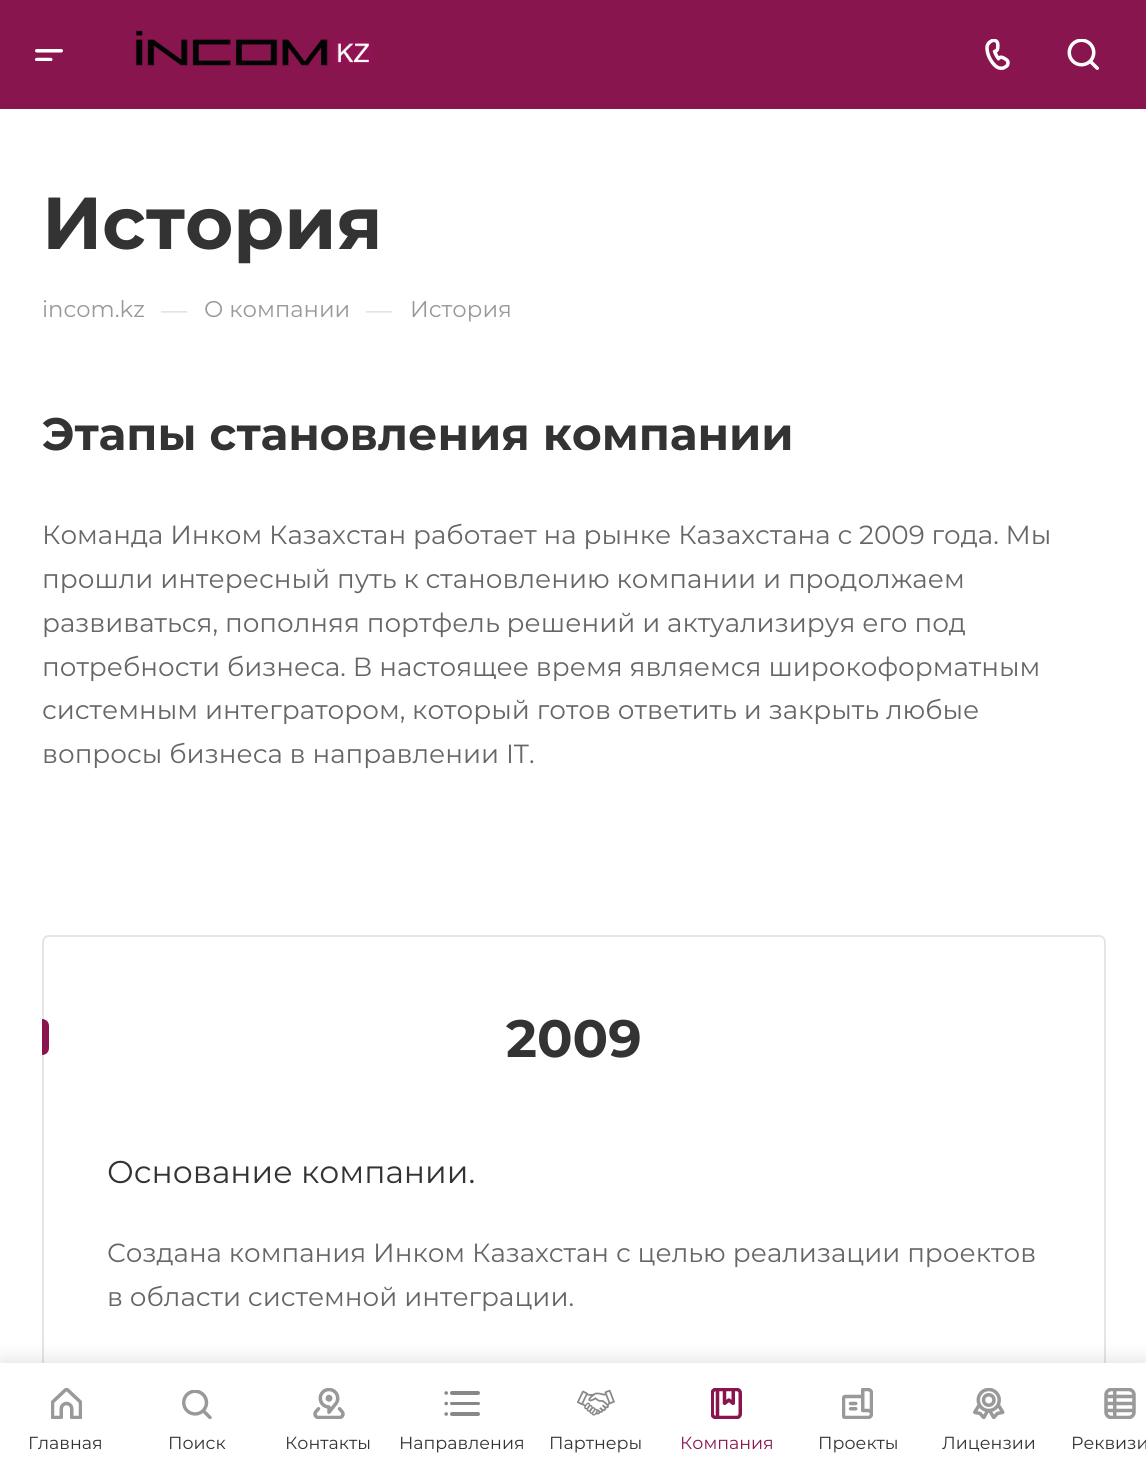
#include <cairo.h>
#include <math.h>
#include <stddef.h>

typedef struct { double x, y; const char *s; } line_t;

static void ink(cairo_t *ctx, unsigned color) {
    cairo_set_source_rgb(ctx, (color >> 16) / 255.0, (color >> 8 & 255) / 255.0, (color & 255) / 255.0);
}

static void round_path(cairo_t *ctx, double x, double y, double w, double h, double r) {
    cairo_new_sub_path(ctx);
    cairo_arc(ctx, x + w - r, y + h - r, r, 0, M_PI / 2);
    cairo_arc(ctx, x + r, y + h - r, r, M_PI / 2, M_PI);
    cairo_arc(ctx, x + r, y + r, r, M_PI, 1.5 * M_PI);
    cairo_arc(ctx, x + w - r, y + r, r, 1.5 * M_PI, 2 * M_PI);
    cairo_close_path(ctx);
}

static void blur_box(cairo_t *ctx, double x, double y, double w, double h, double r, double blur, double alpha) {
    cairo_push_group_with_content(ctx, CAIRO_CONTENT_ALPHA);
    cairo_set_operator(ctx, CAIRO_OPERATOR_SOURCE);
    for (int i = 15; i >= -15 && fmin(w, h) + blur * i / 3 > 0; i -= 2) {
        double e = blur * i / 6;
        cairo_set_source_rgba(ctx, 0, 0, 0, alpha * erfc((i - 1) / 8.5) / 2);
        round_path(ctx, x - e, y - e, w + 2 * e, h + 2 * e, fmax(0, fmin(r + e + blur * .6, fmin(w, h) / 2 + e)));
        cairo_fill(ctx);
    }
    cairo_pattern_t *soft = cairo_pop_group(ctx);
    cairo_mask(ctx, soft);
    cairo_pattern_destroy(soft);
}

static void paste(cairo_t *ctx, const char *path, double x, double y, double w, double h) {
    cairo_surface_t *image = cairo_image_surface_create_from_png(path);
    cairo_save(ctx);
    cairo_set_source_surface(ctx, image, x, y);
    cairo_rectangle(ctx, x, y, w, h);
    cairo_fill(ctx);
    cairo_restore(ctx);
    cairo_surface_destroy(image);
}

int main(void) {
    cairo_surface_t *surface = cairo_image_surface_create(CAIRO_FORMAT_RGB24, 1146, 1460);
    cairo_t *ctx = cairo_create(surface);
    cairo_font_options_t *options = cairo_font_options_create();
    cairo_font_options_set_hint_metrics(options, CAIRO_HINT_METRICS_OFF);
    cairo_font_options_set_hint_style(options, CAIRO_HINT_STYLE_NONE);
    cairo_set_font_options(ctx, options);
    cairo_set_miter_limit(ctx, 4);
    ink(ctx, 0xFFFFFF);
    cairo_paint(ctx);
    ink(ctx, 0x89154F);
    cairo_rectangle(ctx, 0, 0, 1146, 109);
    cairo_fill(ctx);
    paste(ctx, "media/1.png", 35, 49, 28, 12);
    paste(ctx, "media/2.png", 135, 30, 238, 36);
    paste(ctx, "media/3.png", 985, 39, 25, 31);
    paste(ctx, "media/4.png", 1067, 39, 32, 31);
    cairo_select_font_face(ctx, "Montserrat", CAIRO_FONT_SLANT_NORMAL, CAIRO_FONT_WEIGHT_BOLD);
    cairo_set_font_size(ctx, 73.5);
    ink(ctx, 0x333333);
    cairo_move_to(ctx, 42, 249);
    cairo_show_text(ctx, "История");
    cairo_select_font_face(ctx, "Montserrat", CAIRO_FONT_SLANT_NORMAL, CAIRO_FONT_WEIGHT_NORMAL);
    cairo_set_font_size(ctx, 22.75);
    ink(ctx, 0x999999);
    cairo_move_to(ctx, 42, 317);
    cairo_show_text(ctx, "incom.kz");
    cairo_set_font_size(ctx, 26.25);
    ink(ctx, 0xDDDDDD);
    cairo_move_to(ctx, 161, 319);
    cairo_show_text(ctx, "—");
    cairo_set_font_size(ctx, 22.75);
    ink(ctx, 0x999999);
    cairo_move_to(ctx, 204, 317);
    cairo_show_text(ctx, "О компании");
    cairo_set_font_size(ctx, 26.25);
    ink(ctx, 0xDDDDDD);
    cairo_move_to(ctx, 366, 319);
    cairo_show_text(ctx, "—");
    cairo_set_font_size(ctx, 22.75);
    ink(ctx, 0x999999);
    cairo_move_to(ctx, 410, 317);
    cairo_show_text(ctx, "История");
    cairo_select_font_face(ctx, "Montserrat", CAIRO_FONT_SLANT_NORMAL, CAIRO_FONT_WEIGHT_BOLD);
    cairo_set_font_size(ctx, 45.5);
    ink(ctx, 0x333333);
    cairo_move_to(ctx, 42, 450);
    cairo_show_text(ctx, "Этапы становления компании");
    cairo_select_font_face(ctx, "Montserrat", CAIRO_FONT_SLANT_NORMAL, CAIRO_FONT_WEIGHT_NORMAL);
    cairo_set_font_size(ctx, 26.25);
    ink(ctx, 0x666666);
    {
        static const line_t items[] = {
            {42, 544, "Команда Инком Казахстан работает на рынке Казахстана с 2009 года. Мы"},
            {42, 588, "прошли интересный путь к становлению компании и продолжаем"},
            {42, 632, "развиваться, пополняя портфель решений и актуализируя его под"},
            {42, 676, "потребности бизнеса. В настоящее время являемся широкоформатным"},
            {42, 719, "системным интегратором, который готов ответить и закрыть любые"},
            {42, 763, "вопросы бизнеса в направлении IT."},
        };
        for (size_t i = 0; i < sizeof items / sizeof *items; i++) {
            cairo_move_to(ctx, items[i].x, items[i].y);
            cairo_show_text(ctx, items[i].s);
        }
    }
    round_path(ctx, 43, 936, 1062, 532, 6);
    ink(ctx, 0xE5E5E5);
    cairo_stroke(ctx);
    ink(ctx, 0x89154F);
    cairo_new_path(ctx);
    cairo_move_to(ctx, 42, 1019);
    cairo_curve_to(ctx, 46, 1019, 49, 1022, 49, 1026);
    cairo_line_to(ctx, 49, 1048);
    cairo_curve_to(ctx, 49, 1052, 46, 1055, 42, 1055);
    cairo_close_path(ctx);
    cairo_fill(ctx);
    cairo_select_font_face(ctx, "Montserrat", CAIRO_FONT_SLANT_NORMAL, CAIRO_FONT_WEIGHT_BOLD);
    cairo_set_font_size(ctx, 52.5);
    ink(ctx, 0x333333);
    cairo_move_to(ctx, 506, 1057);
    cairo_show_text(ctx, "2009");
    cairo_select_font_face(ctx, "Montserrat", CAIRO_FONT_SLANT_NORMAL, CAIRO_FONT_WEIGHT_NORMAL);
    cairo_set_font_size(ctx, 31.5);
    cairo_move_to(ctx, 107, 1183);
    cairo_show_text(ctx, "Основание компании.");
    cairo_set_font_size(ctx, 26.25);
    ink(ctx, 0x666666);
    cairo_move_to(ctx, 107, 1262);
    cairo_show_text(ctx, "Создана компания Инком Казахстан с целью реализации проектов");
    cairo_move_to(ctx, 107, 1306);
    cairo_show_text(ctx, "в области системной интеграции.");
    ink(ctx, 0x000000);
    blur_box(ctx, 0, 1358, 1146, 98, 0, 9, 0.1);
    ink(ctx, 0xFFFFFF);
    cairo_rectangle(ctx, 0, 1363, 1146, 97);
    cairo_fill(ctx);
    paste(ctx, "media/5.png", 51, 1388, 31, 31);
    cairo_set_font_size(ctx, 17.5);
    ink(ctx, 0x333333);
    cairo_move_to(ctx, 28, 1449);
    cairo_show_text(ctx, "Главная");
    paste(ctx, "media/6.png", 182, 1390, 30, 29);
    cairo_move_to(ctx, 168, 1449);
    cairo_show_text(ctx, "Поиск");
    paste(ctx, "media/7.png", 313, 1388, 32, 31);
    cairo_move_to(ctx, 285, 1449);
    cairo_show_text(ctx, "Контакты");
    ink(ctx, 0x888888);
    round_path(ctx, 450, 1412, 30, 4, 2);
    cairo_fill(ctx);
    round_path(ctx, 450, 1402, 30, 3, 1.5);
    cairo_fill(ctx);
    round_path(ctx, 450, 1391, 30, 4, 2);
    cairo_fill(ctx);
    cairo_arc(ctx, 446.2, 1414, 1.8, 0, 2 * M_PI);
    cairo_fill(ctx);
    cairo_arc(ctx, 446.2, 1403.5, 1.8, 0, 2 * M_PI);
    cairo_fill(ctx);
    cairo_arc(ctx, 446.2, 1393, 1.8, 0, 2 * M_PI);
    cairo_fill(ctx);
    ink(ctx, 0x333333);
    cairo_move_to(ctx, 399, 1449);
    cairo_show_text(ctx, "Направления");
    paste(ctx, "media/8.png", 577, 1389, 38, 27);
    cairo_move_to(ctx, 549, 1449);
    cairo_show_text(ctx, "Партнеры");
    paste(ctx, "media/9.png", 711, 1388, 31, 31);
    ink(ctx, 0x89154F);
    cairo_move_to(ctx, 680, 1449);
    cairo_show_text(ctx, "Компания");
    paste(ctx, "media/10.png", 842, 1388, 31, 31);
    ink(ctx, 0x333333);
    cairo_move_to(ctx, 818, 1449);
    cairo_show_text(ctx, "Проекты");
    paste(ctx, "media/11.png", 973, 1388, 32, 31);
    cairo_move_to(ctx, 942, 1449);
    cairo_show_text(ctx, "Лицензии");
    paste(ctx, "media/12.png", 1104, 1388, 32, 31);
    cairo_move_to(ctx, 1071, 1449);
    cairo_show_text(ctx, "Реквизи");
    cairo_surface_write_to_png(surface, "image.png");
    cairo_font_options_destroy(options);
    cairo_destroy(ctx);
    cairo_surface_destroy(surface);
    return 0;
}
